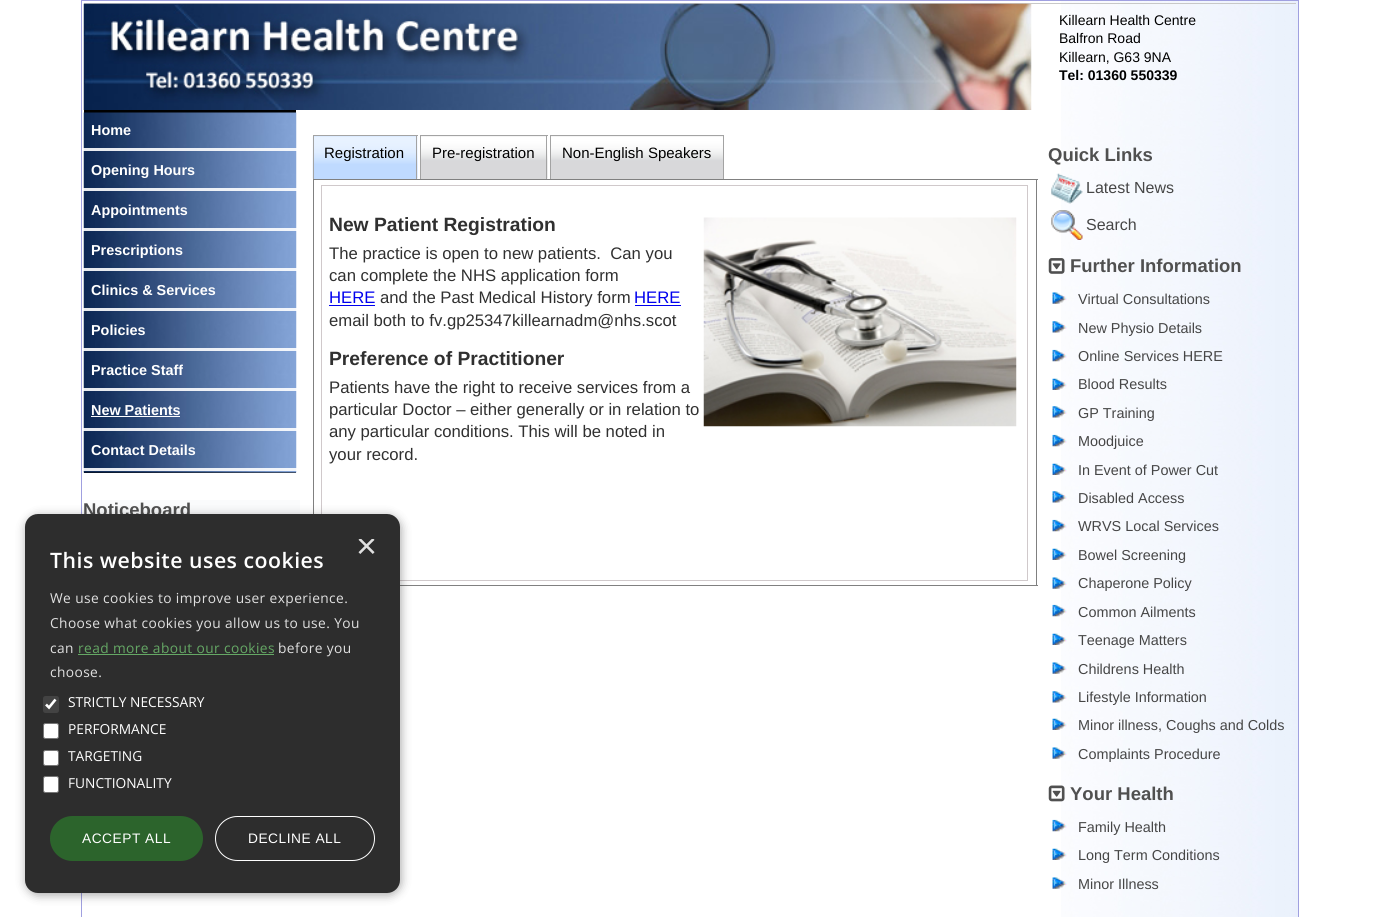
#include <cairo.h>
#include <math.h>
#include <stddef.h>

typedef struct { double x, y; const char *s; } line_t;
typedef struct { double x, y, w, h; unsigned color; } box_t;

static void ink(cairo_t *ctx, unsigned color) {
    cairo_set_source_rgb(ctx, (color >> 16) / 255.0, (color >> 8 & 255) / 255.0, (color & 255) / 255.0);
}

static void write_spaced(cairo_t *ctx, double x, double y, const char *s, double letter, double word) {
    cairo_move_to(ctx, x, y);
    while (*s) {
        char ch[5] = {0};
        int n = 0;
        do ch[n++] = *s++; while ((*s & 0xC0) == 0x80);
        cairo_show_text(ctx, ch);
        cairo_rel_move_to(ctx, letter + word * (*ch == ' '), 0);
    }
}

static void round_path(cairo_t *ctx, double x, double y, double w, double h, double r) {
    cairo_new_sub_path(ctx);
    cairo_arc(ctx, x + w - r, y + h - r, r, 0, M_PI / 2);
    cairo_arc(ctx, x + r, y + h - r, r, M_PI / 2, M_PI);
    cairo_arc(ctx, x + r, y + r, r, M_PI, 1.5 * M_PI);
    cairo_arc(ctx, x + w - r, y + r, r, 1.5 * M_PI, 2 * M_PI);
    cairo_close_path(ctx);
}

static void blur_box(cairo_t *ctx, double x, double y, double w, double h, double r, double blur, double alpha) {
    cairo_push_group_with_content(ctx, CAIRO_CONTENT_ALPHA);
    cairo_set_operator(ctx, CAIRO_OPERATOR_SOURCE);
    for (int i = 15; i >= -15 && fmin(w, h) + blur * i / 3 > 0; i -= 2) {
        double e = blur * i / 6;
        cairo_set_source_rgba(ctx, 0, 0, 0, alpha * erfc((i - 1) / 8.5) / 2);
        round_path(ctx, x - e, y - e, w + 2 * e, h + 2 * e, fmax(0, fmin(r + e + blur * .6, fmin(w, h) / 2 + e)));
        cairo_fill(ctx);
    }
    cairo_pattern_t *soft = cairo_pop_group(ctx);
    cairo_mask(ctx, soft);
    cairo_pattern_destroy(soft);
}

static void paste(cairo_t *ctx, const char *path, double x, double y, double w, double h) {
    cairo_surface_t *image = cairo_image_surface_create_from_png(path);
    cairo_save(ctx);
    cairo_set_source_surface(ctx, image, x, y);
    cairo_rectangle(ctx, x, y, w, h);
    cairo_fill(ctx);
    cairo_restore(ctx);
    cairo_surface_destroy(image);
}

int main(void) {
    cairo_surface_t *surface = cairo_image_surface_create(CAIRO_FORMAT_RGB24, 1378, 917);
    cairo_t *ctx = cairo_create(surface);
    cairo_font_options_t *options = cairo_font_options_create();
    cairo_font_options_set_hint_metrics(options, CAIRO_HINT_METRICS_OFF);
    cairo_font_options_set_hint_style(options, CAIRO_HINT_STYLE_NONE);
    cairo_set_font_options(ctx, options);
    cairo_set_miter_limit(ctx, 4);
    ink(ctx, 0xFFFFFF);
    cairo_paint(ctx);
    paste(ctx, "media/1.png", 1061, 1, 237, 916);
    cairo_rectangle(ctx, 81.5, 0.5, 1217, 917);
    ink(ctx, 0xA0A0E0);
    cairo_set_line_width(ctx, 1);
    cairo_stroke(ctx);
    ink(ctx, 0xC8C8C8);
    cairo_rectangle(ctx, 84, 3, 1212, 1);
    cairo_fill(ctx);
    paste(ctx, "media/2.png", 83, 3, 949, 107);
    cairo_select_font_face(ctx, "Liberation Sans", CAIRO_FONT_SLANT_NORMAL, CAIRO_FONT_WEIGHT_NORMAL);
    cairo_set_font_size(ctx, 14);
    ink(ctx, 0x000000);
    {
        static const line_t items[] = {
            {1059, 25, "Killearn Health Centre"},
            {1059, 43, "Balfron Road"},
            {1059, 62, "Killearn, G63 9NA"},
        };
        for (size_t i = 0; i < sizeof items / sizeof *items; i++) {
            cairo_move_to(ctx, items[i].x, items[i].y);
            cairo_show_text(ctx, items[i].s);
        }
    }
    cairo_select_font_face(ctx, "Liberation Sans", CAIRO_FONT_SLANT_NORMAL, CAIRO_FONT_WEIGHT_BOLD);
    cairo_move_to(ctx, 1059, 80);
    cairo_show_text(ctx, "Tel: 01360 550339");
    cairo_rectangle(ctx, 84, 110, 212, 363);
    cairo_fill(ctx);
    paste(ctx, "media/3.png", 83, 112, 214, 361);
    cairo_set_source_rgba(ctx, 1, 1, 1, 0.9);
    cairo_rectangle(ctx, 83, 148, 214, 3);
    cairo_fill(ctx);
    cairo_set_font_size(ctx, 14.4);
    ink(ctx, 0xFFFFFF);
    cairo_move_to(ctx, 91, 135);
    cairo_show_text(ctx, "Home");
    cairo_set_source_rgba(ctx, 1, 1, 1, 0.9);
    cairo_rectangle(ctx, 83, 188, 214, 3);
    cairo_fill(ctx);
    ink(ctx, 0xFFFFFF);
    cairo_move_to(ctx, 91, 175);
    cairo_show_text(ctx, "Opening Hours");
    cairo_set_source_rgba(ctx, 1, 1, 1, 0.9);
    cairo_rectangle(ctx, 83, 228, 214, 3);
    cairo_fill(ctx);
    ink(ctx, 0xFFFFFF);
    cairo_move_to(ctx, 91, 215);
    cairo_show_text(ctx, "Appointments");
    cairo_set_source_rgba(ctx, 1, 1, 1, 0.9);
    cairo_rectangle(ctx, 83, 268, 214, 3);
    cairo_fill(ctx);
    ink(ctx, 0xFFFFFF);
    cairo_move_to(ctx, 91, 255);
    cairo_show_text(ctx, "Prescriptions");
    cairo_set_source_rgba(ctx, 1, 1, 1, 0.9);
    cairo_rectangle(ctx, 83, 308, 214, 3);
    cairo_fill(ctx);
    ink(ctx, 0xFFFFFF);
    cairo_move_to(ctx, 91, 295);
    cairo_show_text(ctx, "Clinics & Services");
    cairo_set_source_rgba(ctx, 1, 1, 1, 0.9);
    cairo_rectangle(ctx, 83, 348, 214, 3);
    cairo_fill(ctx);
    ink(ctx, 0xFFFFFF);
    cairo_move_to(ctx, 91, 335);
    cairo_show_text(ctx, "Policies");
    cairo_set_source_rgba(ctx, 1, 1, 1, 0.9);
    cairo_rectangle(ctx, 83, 388, 214, 3);
    cairo_fill(ctx);
    ink(ctx, 0xFFFFFF);
    cairo_move_to(ctx, 91, 375);
    cairo_show_text(ctx, "Practice Staff");
    cairo_set_source_rgba(ctx, 1, 1, 1, 0.9);
    cairo_rectangle(ctx, 83, 428, 214, 3);
    cairo_fill(ctx);
    ink(ctx, 0xFFFFFF);
    cairo_move_to(ctx, 91, 415);
    cairo_show_text(ctx, "New Patients");
    cairo_rectangle(ctx, 91, 416, 89, 1);
    cairo_fill(ctx);
    cairo_set_source_rgba(ctx, 1, 1, 1, 0.9);
    cairo_rectangle(ctx, 83, 468, 214, 3);
    cairo_fill(ctx);
    ink(ctx, 0xFFFFFF);
    cairo_move_to(ctx, 91, 455);
    cairo_show_text(ctx, "Contact Details");
    ink(ctx, 0xFAFBFC);
    cairo_rectangle(ctx, 90, 500, 210, 14);
    cairo_fill(ctx);
    cairo_set_font_size(ctx, 18.5);
    ink(ctx, 0x505050);
    cairo_move_to(ctx, 83, 516);
    cairo_show_text(ctx, "Noticeboard");
    ink(ctx, 0x808080);
    cairo_rectangle(ctx, 313, 179, 725, 1);
    cairo_fill(ctx);
    ink(ctx, 0xBFDAFF);
    cairo_rectangle(ctx, 314, 136, 102, 43);
    cairo_fill(ctx);
    paste(ctx, "media/4.png", 312, 136, 106, 43);
    {
        static const box_t items[] = {
            {313, 135, 105, 1, 0xA3A3A3},
            {416, 135, 1, 44, 0xA3A3A3},
            {313, 135, 1, 44, 0xA3A3A3},
        };
        for (size_t i = 0; i < sizeof items / sizeof *items; i++) {
            ink(ctx, items[i].color);
            cairo_rectangle(ctx, items[i].x, items[i].y, items[i].w, items[i].h);
            cairo_fill(ctx);
        }
    }
    cairo_select_font_face(ctx, "Liberation Sans", CAIRO_FONT_SLANT_NORMAL, CAIRO_FONT_WEIGHT_NORMAL);
    cairo_set_font_size(ctx, 15);
    ink(ctx, 0x000000);
    cairo_move_to(ctx, 324, 158);
    cairo_show_text(ctx, "Registration");
    ink(ctx, 0xD8D8D8);
    cairo_rectangle(ctx, 421, 136, 125, 43);
    cairo_fill(ctx);
    paste(ctx, "media/5.png", 421, 136, 127, 43);
    {
        static const box_t items[] = {
            {420, 135, 128, 1, 0xA3A3A3},
            {546, 135, 1, 44, 0xA3A3A3},
            {420, 135, 1, 44, 0xA3A3A3},
        };
        for (size_t i = 0; i < sizeof items / sizeof *items; i++) {
            ink(ctx, items[i].color);
            cairo_rectangle(ctx, items[i].x, items[i].y, items[i].w, items[i].h);
            cairo_fill(ctx);
        }
    }
    ink(ctx, 0x000000);
    cairo_move_to(ctx, 432, 158);
    cairo_show_text(ctx, "Pre-registration");
    ink(ctx, 0xD8D8D8);
    cairo_rectangle(ctx, 551, 136, 172, 43);
    cairo_fill(ctx);
    paste(ctx, "media/6.png", 551, 136, 172, 43);
    {
        static const box_t items[] = {
            {550, 135, 174, 1, 0xA3A3A3},
            {723, 135, 1, 44, 0xA3A3A3},
            {550, 135, 1, 44, 0xA3A3A3},
        };
        for (size_t i = 0; i < sizeof items / sizeof *items; i++) {
            ink(ctx, items[i].color);
            cairo_rectangle(ctx, items[i].x, items[i].y, items[i].w, items[i].h);
            cairo_fill(ctx);
        }
    }
    ink(ctx, 0x000000);
    cairo_move_to(ctx, 562, 158);
    cairo_show_text(ctx, "Non-English Speakers");
    {
        static const box_t items[] = {
            {1036, 180, 1, 406, 0x808080},
            {400, 585, 638, 1, 0x808080},
            {313, 180, 1, 334, 0x808080},
        };
        for (size_t i = 0; i < sizeof items / sizeof *items; i++) {
            ink(ctx, items[i].color);
            cairo_rectangle(ctx, items[i].x, items[i].y, items[i].w, items[i].h);
            cairo_fill(ctx);
        }
    }
    cairo_rectangle(ctx, 321.5, 185.5, 706, 395);
    ink(ctx, 0xD0C9CB);
    cairo_stroke(ctx);
    cairo_select_font_face(ctx, "Liberation Sans", CAIRO_FONT_SLANT_NORMAL, CAIRO_FONT_WEIGHT_BOLD);
    cairo_set_font_size(ctx, 19.25);
    ink(ctx, 0x303030);
    cairo_move_to(ctx, 329, 231);
    cairo_show_text(ctx, "New Patient Registration");
    paste(ctx, "media/7.png", 703, 217, 314, 210);
    cairo_select_font_face(ctx, "Liberation Sans", CAIRO_FONT_SLANT_NORMAL, CAIRO_FONT_WEIGHT_NORMAL);
    cairo_set_font_size(ctx, 16.7);
    cairo_move_to(ctx, 329, 259);
    cairo_show_text(ctx, "The practice is open to new patients.  Can you");
    cairo_move_to(ctx, 329, 281);
    cairo_show_text(ctx, "can complete the NHS application form");
    ink(ctx, 0x0000EE);
    cairo_move_to(ctx, 329, 303);
    cairo_show_text(ctx, "HERE");
    cairo_rectangle(ctx, 329, 305, 46, 1);
    cairo_fill(ctx);
    ink(ctx, 0x303030);
    cairo_move_to(ctx, 380, 303);
    cairo_show_text(ctx, "and the Past Medical History form");
    ink(ctx, 0x0000EE);
    cairo_move_to(ctx, 634, 303);
    cairo_show_text(ctx, "HERE");
    cairo_rectangle(ctx, 635, 305, 46, 1);
    cairo_fill(ctx);
    ink(ctx, 0x303030);
    cairo_move_to(ctx, 329, 326);
    cairo_show_text(ctx, "email both to fv.gp25347killearnadm@nhs.scot");
    cairo_select_font_face(ctx, "Liberation Sans", CAIRO_FONT_SLANT_NORMAL, CAIRO_FONT_WEIGHT_BOLD);
    cairo_set_font_size(ctx, 19.25);
    cairo_move_to(ctx, 329, 365);
    cairo_show_text(ctx, "Preference of Practitioner");
    cairo_select_font_face(ctx, "Liberation Sans", CAIRO_FONT_SLANT_NORMAL, CAIRO_FONT_WEIGHT_NORMAL);
    cairo_set_font_size(ctx, 16.7);
    {
        static const line_t items[] = {
            {329, 393, "Patients have the right to receive services from a"},
            {329, 415, "particular Doctor – either generally or in relation to"},
            {329, 437, "any particular conditions. This will be noted in"},
            {329, 460, "your record."},
        };
        for (size_t i = 0; i < sizeof items / sizeof *items; i++) {
            cairo_move_to(ctx, items[i].x, items[i].y);
            cairo_show_text(ctx, items[i].s);
        }
    }
    cairo_select_font_face(ctx, "Liberation Sans", CAIRO_FONT_SLANT_NORMAL, CAIRO_FONT_WEIGHT_BOLD);
    cairo_set_font_size(ctx, 18.5);
    ink(ctx, 0x505050);
    cairo_move_to(ctx, 1048, 161);
    cairo_show_text(ctx, "Quick Links");
    paste(ctx, "media/8.png", 1051, 173, 32, 31);
    cairo_select_font_face(ctx, "Liberation Sans", CAIRO_FONT_SLANT_NORMAL, CAIRO_FONT_WEIGHT_NORMAL);
    cairo_set_font_size(ctx, 16);
    ink(ctx, 0x464646);
    cairo_move_to(ctx, 1086, 193);
    cairo_show_text(ctx, "Latest News");
    paste(ctx, "media/9.png", 1051, 210, 32, 30);
    cairo_move_to(ctx, 1086, 230);
    cairo_show_text(ctx, "Search");
    paste(ctx, "media/10.png", 1048, 258, 17, 16);
    cairo_select_font_face(ctx, "Liberation Sans", CAIRO_FONT_SLANT_NORMAL, CAIRO_FONT_WEIGHT_BOLD);
    cairo_set_font_size(ctx, 18.5);
    ink(ctx, 0x505050);
    cairo_move_to(ctx, 1070, 272);
    cairo_show_text(ctx, "Further Information");
    paste(ctx, "media/11.png", 1052, 292, 15, 12);
    cairo_select_font_face(ctx, "Liberation Sans", CAIRO_FONT_SLANT_NORMAL, CAIRO_FONT_WEIGHT_NORMAL);
    cairo_set_font_size(ctx, 14.4);
    ink(ctx, 0x464646);
    cairo_move_to(ctx, 1078, 304);
    cairo_show_text(ctx, "Virtual Consultations");
    paste(ctx, "media/12.png", 1052, 321, 15, 12);
    cairo_move_to(ctx, 1078, 333);
    cairo_show_text(ctx, "New Physio Details");
    paste(ctx, "media/13.png", 1052, 349, 15, 13);
    cairo_move_to(ctx, 1078, 361);
    cairo_show_text(ctx, "Online Services HERE");
    paste(ctx, "media/14.png", 1052, 378, 15, 12);
    cairo_move_to(ctx, 1078, 389);
    cairo_show_text(ctx, "Blood Results");
    paste(ctx, "media/15.png", 1052, 406, 15, 12);
    cairo_move_to(ctx, 1078, 418);
    cairo_show_text(ctx, "GP Training");
    paste(ctx, "media/16.png", 1052, 434, 15, 13);
    cairo_move_to(ctx, 1078, 446);
    cairo_show_text(ctx, "Moodjuice");
    paste(ctx, "media/17.png", 1052, 463, 15, 12);
    cairo_move_to(ctx, 1078, 475);
    cairo_show_text(ctx, "In Event of Power Cut");
    paste(ctx, "media/18.png", 1052, 491, 15, 12);
    cairo_move_to(ctx, 1078, 503);
    cairo_show_text(ctx, "Disabled Access");
    paste(ctx, "media/19.png", 1052, 519, 15, 13);
    cairo_move_to(ctx, 1078, 531);
    cairo_show_text(ctx, "WRVS Local Services");
    paste(ctx, "media/20.png", 1052, 548, 15, 12);
    cairo_move_to(ctx, 1078, 560);
    cairo_show_text(ctx, "Bowel Screening");
    paste(ctx, "media/21.png", 1052, 577, 15, 12);
    cairo_move_to(ctx, 1078, 588);
    cairo_show_text(ctx, "Chaperone Policy");
    paste(ctx, "media/22.png", 1052, 604, 15, 13);
    cairo_move_to(ctx, 1078, 617);
    cairo_show_text(ctx, "Common Ailments");
    paste(ctx, "media/23.png", 1052, 633, 15, 12);
    cairo_move_to(ctx, 1078, 645);
    cairo_show_text(ctx, "Teenage Matters");
    paste(ctx, "media/24.png", 1052, 662, 15, 12);
    cairo_move_to(ctx, 1078, 674);
    cairo_show_text(ctx, "Childrens Health");
    paste(ctx, "media/18.png", 1052, 691, 15, 12);
    cairo_move_to(ctx, 1078, 702);
    cairo_show_text(ctx, "Lifestyle Information");
    paste(ctx, "media/25.png", 1052, 718, 15, 12);
    cairo_move_to(ctx, 1078, 730);
    cairo_show_text(ctx, "Minor illness, Coughs and Colds");
    paste(ctx, "media/26.png", 1052, 747, 15, 12);
    cairo_move_to(ctx, 1078, 759);
    cairo_show_text(ctx, "Complaints Procedure");
    paste(ctx, "media/27.png", 1048, 785, 17, 17);
    cairo_select_font_face(ctx, "Liberation Sans", CAIRO_FONT_SLANT_NORMAL, CAIRO_FONT_WEIGHT_BOLD);
    cairo_set_font_size(ctx, 18.5);
    ink(ctx, 0x505050);
    cairo_move_to(ctx, 1070, 800);
    cairo_show_text(ctx, "Your Health");
    paste(ctx, "media/19.png", 1052, 819, 15, 13);
    cairo_select_font_face(ctx, "Liberation Sans", CAIRO_FONT_SLANT_NORMAL, CAIRO_FONT_WEIGHT_NORMAL);
    cairo_set_font_size(ctx, 14.4);
    ink(ctx, 0x464646);
    cairo_move_to(ctx, 1078, 832);
    cairo_show_text(ctx, "Family Health");
    paste(ctx, "media/20.png", 1052, 848, 15, 12);
    cairo_move_to(ctx, 1078, 860);
    cairo_show_text(ctx, "Long Term Conditions");
    paste(ctx, "media/21.png", 1052, 877, 15, 12);
    cairo_move_to(ctx, 1078, 889);
    cairo_show_text(ctx, "Minor Illness");
    ink(ctx, 0x000000);
    blur_box(ctx, 26, 516, 375, 379, 13, 5, 0.35);
    ink(ctx, 0x2D2D2D);
    round_path(ctx, 25, 514, 375, 379, 13);
    cairo_fill(ctx);
    cairo_save(ctx);
    cairo_rectangle(ctx, 356, 539, 19, 19);
    cairo_clip(ctx);
    cairo_set_font_size(ctx, 36);
    ink(ctx, 0xE0E0E0);
    cairo_move_to(ctx, 356, 558);
    cairo_show_text(ctx, "×");
    cairo_restore(ctx);
    cairo_select_font_face(ctx, "Open Sans SemiBold", CAIRO_FONT_SLANT_NORMAL, CAIRO_FONT_WEIGHT_NORMAL);
    cairo_set_font_size(ctx, 21.25);
    ink(ctx, 0xFFFFFF);
    write_spaced(ctx, 50, 568, "This website uses cookies", 0.5, 0);
    cairo_select_font_face(ctx, "Open Sans", CAIRO_FONT_SLANT_NORMAL, CAIRO_FONT_WEIGHT_NORMAL);
    cairo_set_font_size(ctx, 13.75);
    ink(ctx, 0xE0E0E0);
    {
        static const line_t items[] = {
            {50, 603, "We use cookies to improve user experience."},
            {50, 628, "Choose what cookies you allow us to use. You"},
            {50, 653, "can"},
        };
        for (size_t i = 0; i < sizeof items / sizeof *items; i++) {
            write_spaced(ctx, items[i].x, items[i].y, items[i].s, 0.4, 0);
        }
    }
    ink(ctx, 0x65A865);
    write_spaced(ctx, 78, 653, "read more about our cookies", 0.4, 0);
    cairo_rectangle(ctx, 78, 654, 196, 1);
    cairo_fill(ctx);
    ink(ctx, 0xE0E0E0);
    write_spaced(ctx, 278, 653, "before you", 0.4, 0);
    write_spaced(ctx, 50, 677, "choose.", 0.4, 0);
    ink(ctx, 0x434343);
    round_path(ctx, 43, 696, 16, 17, 2.5);
    cairo_fill(ctx);
    cairo_new_path(ctx);
    cairo_move_to(ctx, 46, 704.5);
    cairo_line_to(ctx, 49, 707.5);
    cairo_line_to(ctx, 55.5, 699.5);
    ink(ctx, 0xFFFFFF);
    cairo_set_line_width(ctx, 2.6);
    cairo_stroke(ctx);
    cairo_move_to(ctx, 68, 707);
    cairo_show_text(ctx, "STRICTLY NECESSARY");
    round_path(ctx, 43.5, 723.5, 15, 15, 2);
    cairo_fill_preserve(ctx);
    ink(ctx, 0x767676);
    cairo_set_line_width(ctx, 1);
    cairo_stroke(ctx);
    ink(ctx, 0xFFFFFF);
    cairo_move_to(ctx, 68, 734);
    cairo_show_text(ctx, "PERFORMANCE");
    round_path(ctx, 43.5, 750.5, 15, 15, 2);
    cairo_fill_preserve(ctx);
    ink(ctx, 0x767676);
    cairo_stroke(ctx);
    ink(ctx, 0xFFFFFF);
    cairo_move_to(ctx, 68, 761);
    cairo_show_text(ctx, "TARGETING");
    round_path(ctx, 43.5, 776.5, 15, 16, 2);
    cairo_fill_preserve(ctx);
    ink(ctx, 0x767676);
    cairo_stroke(ctx);
    ink(ctx, 0xFFFFFF);
    cairo_move_to(ctx, 68, 788);
    cairo_show_text(ctx, "FUNCTIONALITY");
    ink(ctx, 0x2C642C);
    round_path(ctx, 50, 816, 153, 45, 22.5);
    cairo_fill(ctx);
    cairo_select_font_face(ctx, "Liberation Sans", CAIRO_FONT_SLANT_NORMAL, CAIRO_FONT_WEIGHT_NORMAL);
    ink(ctx, 0xFFFFFF);
    write_spaced(ctx, 82, 843, "ACCEPT ALL", 0.5, 0);
    round_path(ctx, 215.5, 816.5, 159, 44, 22);
    cairo_stroke(ctx);
    write_spaced(ctx, 248, 843, "DECLINE ALL", 0.5, 0);
    cairo_surface_write_to_png(surface, "image.png");
    cairo_font_options_destroy(options);
    cairo_destroy(ctx);
    cairo_surface_destroy(surface);
    return 0;
}
